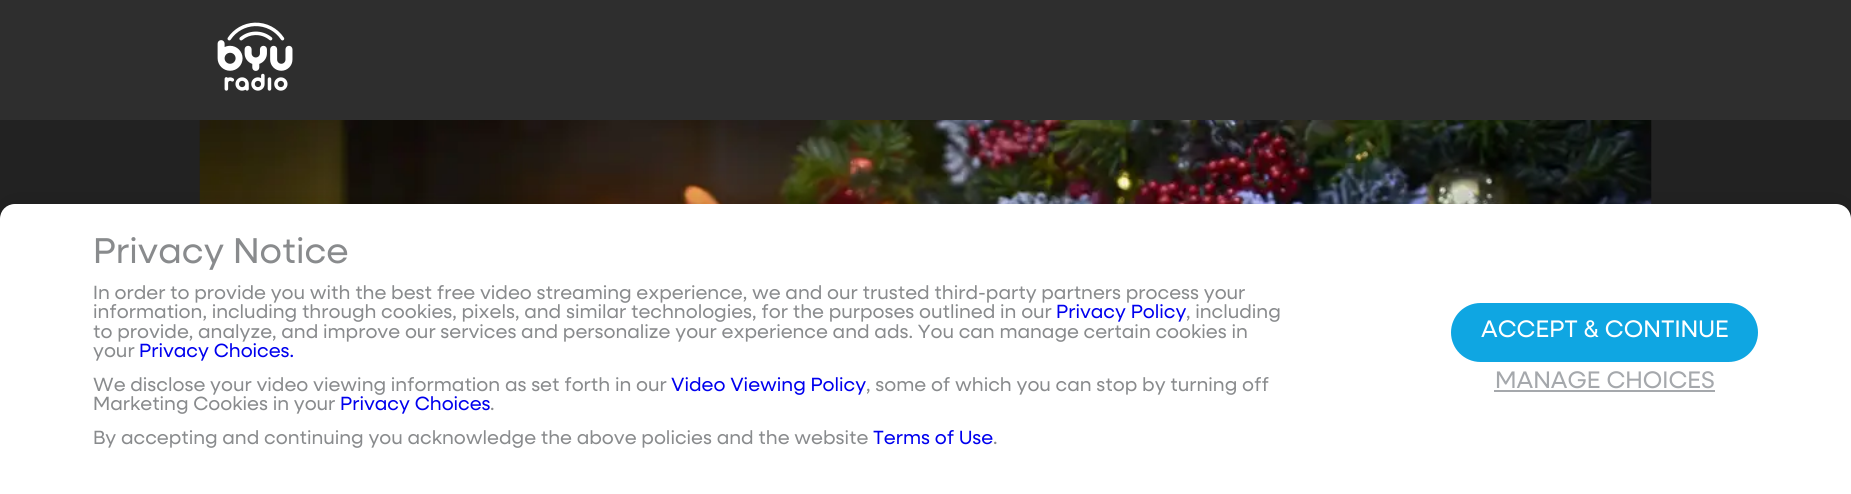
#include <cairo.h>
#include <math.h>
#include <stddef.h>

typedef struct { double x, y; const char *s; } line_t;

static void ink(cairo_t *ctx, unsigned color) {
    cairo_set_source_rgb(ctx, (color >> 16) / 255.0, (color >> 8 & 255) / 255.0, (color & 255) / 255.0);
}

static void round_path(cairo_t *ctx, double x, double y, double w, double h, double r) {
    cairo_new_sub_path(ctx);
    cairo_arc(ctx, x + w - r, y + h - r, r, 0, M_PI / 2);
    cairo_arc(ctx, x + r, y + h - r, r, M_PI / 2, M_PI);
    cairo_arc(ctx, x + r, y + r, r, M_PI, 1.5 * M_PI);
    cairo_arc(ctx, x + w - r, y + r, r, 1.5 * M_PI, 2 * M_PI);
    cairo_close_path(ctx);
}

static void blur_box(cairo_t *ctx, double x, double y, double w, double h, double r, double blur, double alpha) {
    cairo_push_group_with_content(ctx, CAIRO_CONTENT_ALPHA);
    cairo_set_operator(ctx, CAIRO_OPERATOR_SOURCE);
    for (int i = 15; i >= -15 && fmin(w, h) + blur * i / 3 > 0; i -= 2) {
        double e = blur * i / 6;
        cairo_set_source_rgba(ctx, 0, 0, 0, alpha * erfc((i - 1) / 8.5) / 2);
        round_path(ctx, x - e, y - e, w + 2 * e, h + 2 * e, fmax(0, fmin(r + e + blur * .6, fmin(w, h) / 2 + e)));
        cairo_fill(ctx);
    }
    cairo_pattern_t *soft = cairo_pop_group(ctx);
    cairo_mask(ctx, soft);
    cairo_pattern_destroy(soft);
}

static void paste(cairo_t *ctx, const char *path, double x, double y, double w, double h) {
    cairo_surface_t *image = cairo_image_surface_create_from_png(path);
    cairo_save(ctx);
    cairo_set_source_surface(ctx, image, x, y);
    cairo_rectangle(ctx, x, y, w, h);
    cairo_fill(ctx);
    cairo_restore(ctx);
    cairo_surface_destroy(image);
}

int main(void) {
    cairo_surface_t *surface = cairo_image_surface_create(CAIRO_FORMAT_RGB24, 1851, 494);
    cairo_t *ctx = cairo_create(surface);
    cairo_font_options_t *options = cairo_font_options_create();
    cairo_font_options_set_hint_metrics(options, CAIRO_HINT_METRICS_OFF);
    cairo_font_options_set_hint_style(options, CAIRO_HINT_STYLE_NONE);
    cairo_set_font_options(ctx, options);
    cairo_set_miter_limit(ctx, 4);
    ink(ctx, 0x222222);
    cairo_paint(ctx);
    ink(ctx, 0x2E2E2E);
    cairo_rectangle(ctx, 0, 0, 1851, 120);
    cairo_fill(ctx);
    paste(ctx, "media/1.png", 217, 22, 76, 69);
    paste(ctx, "media/2.png", 199, 120, 1453, 84);
    ink(ctx, 0x000000);
    blur_box(ctx, 0, 201, 1851, 291, 15, 7.5, 0.1);
    ink(ctx, 0xFFFFFF);
    cairo_new_path(ctx);
    cairo_move_to(ctx, 15, 204);
    cairo_line_to(ctx, 1836, 204);
    cairo_curve_to(ctx, 1844.5, 204, 1851, 210.5, 1851, 219);
    cairo_line_to(ctx, 1851, 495);
    cairo_line_to(ctx, 0, 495);
    cairo_line_to(ctx, 0, 219);
    cairo_curve_to(ctx, 0, 210.5, 6.5, 204, 15, 204);
    cairo_close_path(ctx);
    cairo_fill(ctx);
    cairo_select_font_face(ctx, "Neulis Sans", CAIRO_FONT_SLANT_NORMAL, CAIRO_FONT_WEIGHT_NORMAL);
    cairo_set_font_size(ctx, 36);
    ink(ctx, 0x898B8D);
    cairo_move_to(ctx, 93, 263);
    cairo_show_text(ctx, "Privacy Notice");
    cairo_set_font_size(ctx, 19.2);
    cairo_move_to(ctx, 93, 299);
    cairo_show_text(ctx, "In order to provide you with the best free video streaming experience, we and our trusted third-party partners process your");
    cairo_move_to(ctx, 93, 318);
    cairo_show_text(ctx, "information, including through cookies, pixels, and similar technologies, for the purposes outlined in our");
    ink(ctx, 0x0000EE);
    cairo_move_to(ctx, 1056, 318);
    cairo_show_text(ctx, "Privacy Policy");
    ink(ctx, 0x898B8D);
    {
        static const line_t items[] = {
            {1186, 318, ", including"},
            {93, 338, "to provide, analyze, and improve our services and personalize your experience and ads. You can manage certain cookies in"},
            {93, 357, "your"},
        };
        for (size_t i = 0; i < sizeof items / sizeof *items; i++) {
            cairo_move_to(ctx, items[i].x, items[i].y);
            cairo_show_text(ctx, items[i].s);
        }
    }
    ink(ctx, 0x0000EE);
    cairo_move_to(ctx, 139, 357);
    cairo_show_text(ctx, "Privacy Choices.");
    ink(ctx, 0x898B8D);
    cairo_move_to(ctx, 93, 391);
    cairo_show_text(ctx, "We disclose your video viewing information as set forth in our");
    ink(ctx, 0x0000EE);
    cairo_move_to(ctx, 671, 391);
    cairo_show_text(ctx, "Video Viewing Policy");
    ink(ctx, 0x898B8D);
    cairo_move_to(ctx, 866, 391);
    cairo_show_text(ctx, ", some of which you can stop by turning off");
    cairo_move_to(ctx, 93, 410);
    cairo_show_text(ctx, "Marketing Cookies in your");
    ink(ctx, 0x0000EE);
    cairo_move_to(ctx, 340, 410);
    cairo_show_text(ctx, "Privacy Choices");
    ink(ctx, 0x898B8D);
    cairo_move_to(ctx, 490, 410);
    cairo_show_text(ctx, ".");
    cairo_move_to(ctx, 93, 444);
    cairo_show_text(ctx, "By accepting and continuing you acknowledge the above policies and the website");
    ink(ctx, 0x0000EE);
    cairo_move_to(ctx, 873, 444);
    cairo_show_text(ctx, "Terms of Use");
    ink(ctx, 0x898B8D);
    cairo_move_to(ctx, 993, 444);
    cairo_show_text(ctx, ".");
    ink(ctx, 0x0FA6E2);
    round_path(ctx, 1451, 303, 307, 59, 29.5);
    cairo_fill(ctx);
    cairo_set_font_size(ctx, 24);
    ink(ctx, 0xFFFFFF);
    cairo_move_to(ctx, 1481, 337);
    cairo_show_text(ctx, "ACCEPT & CONTINUE");
    ink(ctx, 0xA5A8AC);
    cairo_move_to(ctx, 1495, 388);
    cairo_show_text(ctx, "MANAGE CHOICES");
    cairo_rectangle(ctx, 1494, 390, 221, 2);
    cairo_fill(ctx);
    cairo_surface_write_to_png(surface, "image.png");
    cairo_font_options_destroy(options);
    cairo_destroy(ctx);
    cairo_surface_destroy(surface);
    return 0;
}
